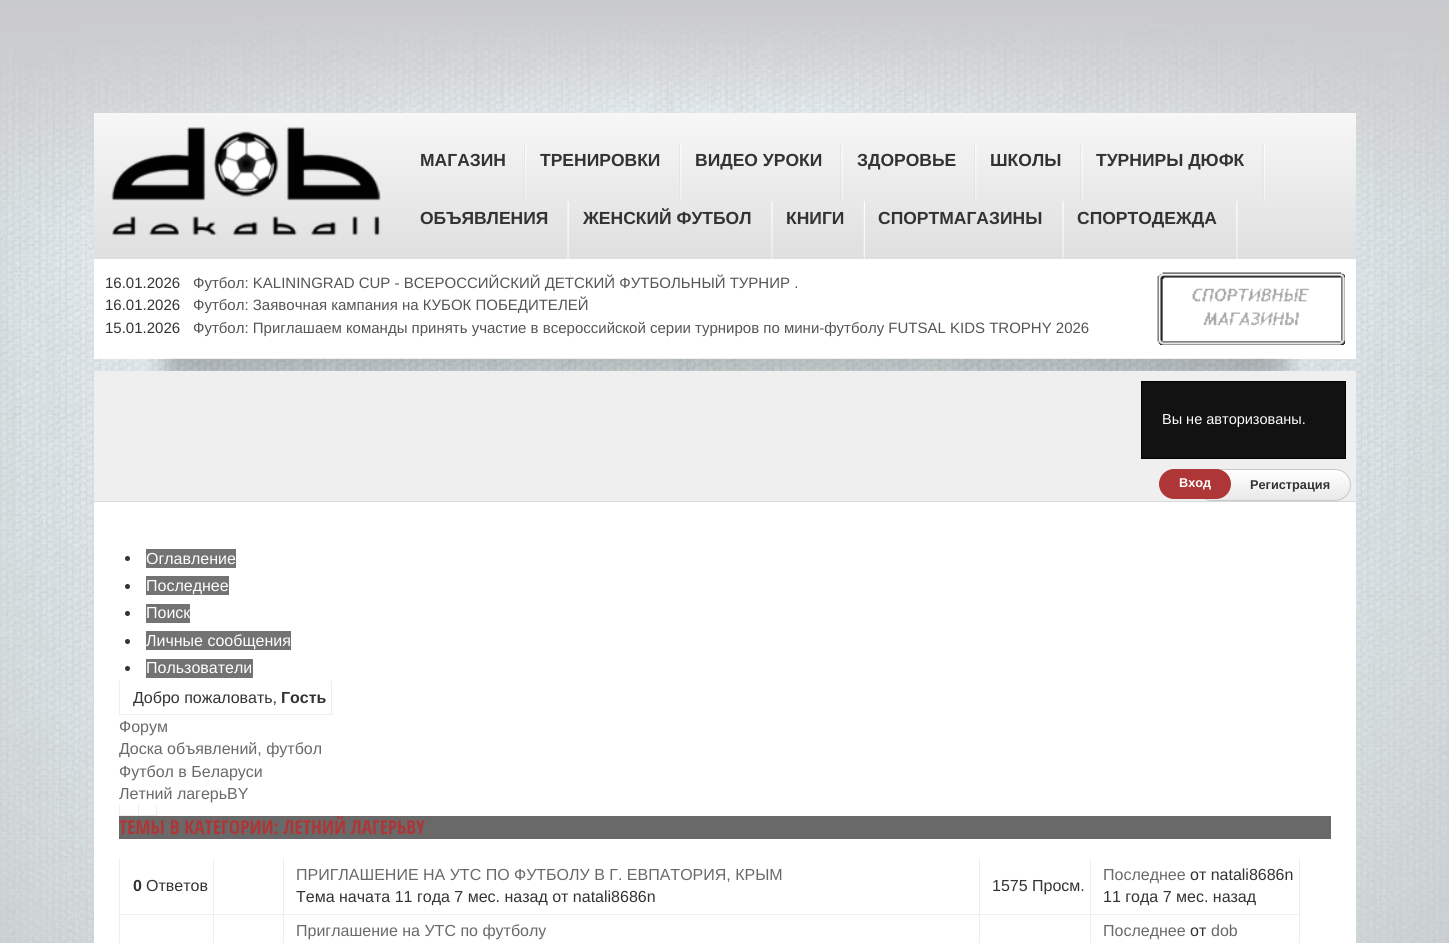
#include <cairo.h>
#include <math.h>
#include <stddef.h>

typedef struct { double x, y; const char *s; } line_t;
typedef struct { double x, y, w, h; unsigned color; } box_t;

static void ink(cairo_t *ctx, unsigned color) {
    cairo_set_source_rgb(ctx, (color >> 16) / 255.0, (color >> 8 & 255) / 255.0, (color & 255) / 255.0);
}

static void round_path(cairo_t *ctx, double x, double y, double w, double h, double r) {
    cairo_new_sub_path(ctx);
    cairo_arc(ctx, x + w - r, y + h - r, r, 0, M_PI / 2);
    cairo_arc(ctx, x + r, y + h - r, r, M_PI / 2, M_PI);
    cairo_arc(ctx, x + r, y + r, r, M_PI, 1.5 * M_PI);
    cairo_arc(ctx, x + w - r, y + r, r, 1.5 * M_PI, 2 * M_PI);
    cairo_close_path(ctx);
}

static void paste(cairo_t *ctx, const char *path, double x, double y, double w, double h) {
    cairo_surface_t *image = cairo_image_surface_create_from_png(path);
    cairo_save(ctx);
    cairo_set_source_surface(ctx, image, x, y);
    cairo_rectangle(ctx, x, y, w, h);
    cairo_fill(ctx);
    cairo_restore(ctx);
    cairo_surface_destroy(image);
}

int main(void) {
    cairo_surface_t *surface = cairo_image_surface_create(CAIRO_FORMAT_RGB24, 1449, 943);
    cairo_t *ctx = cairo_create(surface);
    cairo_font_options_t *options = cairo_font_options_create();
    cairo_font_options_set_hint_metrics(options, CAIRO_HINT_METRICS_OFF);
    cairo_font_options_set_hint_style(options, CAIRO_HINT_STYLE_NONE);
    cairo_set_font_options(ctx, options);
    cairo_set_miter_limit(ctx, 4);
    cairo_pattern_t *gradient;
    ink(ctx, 0xC7CBCE);
    cairo_paint(ctx);
    paste(ctx, "media/1.png", 0, 7, 1449, 936);
    gradient = cairo_pattern_create_linear(725, 112, 725, 259);
    cairo_pattern_add_color_stop_rgba(gradient, 0, 0.969, 0.969, 0.969, 1);
    cairo_pattern_add_color_stop_rgba(gradient, 1, 0.875, 0.875, 0.875, 1);
    cairo_set_source(ctx, gradient);
    cairo_pattern_destroy(gradient);
    cairo_rectangle(ctx, 94, 113, 1262, 146);
    cairo_fill(ctx);
    paste(ctx, "media/2.png", 111, 127, 270, 109);
    paste(ctx, "media/3.png", 524, 144, 3, 57);
    cairo_select_font_face(ctx, "Liberation Sans", CAIRO_FONT_SLANT_NORMAL, CAIRO_FONT_WEIGHT_BOLD);
    cairo_set_font_size(ctx, 17.5);
    ink(ctx, 0x333333);
    cairo_move_to(ctx, 420, 166);
    cairo_show_text(ctx, "МАГАЗИН");
    paste(ctx, "media/3.png", 679, 144, 3, 57);
    cairo_move_to(ctx, 540, 166);
    cairo_show_text(ctx, "ТРЕНИРОВКИ");
    paste(ctx, "media/4.png", 840, 144, 3, 57);
    cairo_move_to(ctx, 695, 166);
    cairo_show_text(ctx, "ВИДЕО УРОКИ");
    paste(ctx, "media/3.png", 974, 144, 3, 57);
    cairo_move_to(ctx, 857, 166);
    cairo_show_text(ctx, "ЗДОРОВЬЕ");
    paste(ctx, "media/4.png", 1080, 144, 3, 57);
    cairo_move_to(ctx, 990, 166);
    cairo_show_text(ctx, "ШКОЛЫ");
    paste(ctx, "media/5.png", 1262, 144, 3, 57);
    cairo_move_to(ctx, 1096, 166);
    cairo_show_text(ctx, "ТУРНИРЫ ДЮФК");
    paste(ctx, "media/6.png", 567, 201, 2, 58);
    cairo_move_to(ctx, 420, 224);
    cairo_show_text(ctx, "ОБЪЯВЛЕНИЯ");
    paste(ctx, "media/7.png", 771, 201, 2, 58);
    cairo_move_to(ctx, 583, 224);
    cairo_show_text(ctx, "ЖЕНСКИЙ ФУТБОЛ");
    paste(ctx, "media/8.png", 863, 201, 2, 58);
    cairo_move_to(ctx, 786, 224);
    cairo_show_text(ctx, "КНИГИ");
    paste(ctx, "media/6.png", 1062, 201, 2, 58);
    cairo_move_to(ctx, 878, 224);
    cairo_show_text(ctx, "СПОРТМАГАЗИНЫ");
    paste(ctx, "media/7.png", 1236, 201, 2, 58);
    cairo_move_to(ctx, 1077, 224);
    cairo_show_text(ctx, "СПОРТОДЕЖДА");
    ink(ctx, 0xFFFFFF);
    cairo_rectangle(ctx, 94, 259, 1262, 100);
    cairo_fill(ctx);
    cairo_select_font_face(ctx, "Liberation Sans", CAIRO_FONT_SLANT_NORMAL, CAIRO_FONT_WEIGHT_NORMAL);
    cairo_set_font_size(ctx, 15);
    ink(ctx, 0x333333);
    cairo_move_to(ctx, 105, 288);
    cairo_show_text(ctx, "16.01.2026");
    ink(ctx, 0x555555);
    cairo_move_to(ctx, 193, 288);
    cairo_show_text(ctx, "Футбол: KALININGRAD CUP - ВСЕРОССИЙСКИЙ ДЕТСКИЙ ФУТБОЛЬНЫЙ ТУРНИР .");
    ink(ctx, 0x333333);
    cairo_move_to(ctx, 105, 310);
    cairo_show_text(ctx, "16.01.2026");
    ink(ctx, 0x555555);
    cairo_move_to(ctx, 193, 310);
    cairo_show_text(ctx, "Футбол: Заявочная кампания на КУБОК ПОБЕДИТЕЛЕЙ");
    ink(ctx, 0x333333);
    cairo_move_to(ctx, 105, 333);
    cairo_show_text(ctx, "15.01.2026");
    ink(ctx, 0x555555);
    cairo_move_to(ctx, 193, 333);
    cairo_show_text(ctx, "Футбол: Приглашаем команды принять участие в всероссийской серии турниров по мини-футболу FUTSAL KIDS TROPHY 2026");
    paste(ctx, "media/9.png", 1157, 272, 188, 73);
    paste(ctx, "media/10.png", 149, 358, 1152, 13);
    ink(ctx, 0xEFEFEF);
    cairo_rectangle(ctx, 94, 371, 1262, 130);
    cairo_fill(ctx);
    ink(ctx, 0x121212);
    cairo_rectangle(ctx, 1141.5, 381.5, 204, 77);
    cairo_fill_preserve(ctx);
    ink(ctx, 0x010101);
    cairo_set_line_width(ctx, 1);
    cairo_stroke(ctx);
    cairo_set_font_size(ctx, 14.5);
    ink(ctx, 0xFFFFFF);
    cairo_move_to(ctx, 1162, 424);
    cairo_show_text(ctx, "Вы не авторизованы.");
    cairo_save(ctx);
    round_path(ctx, 1196, 469, 155, 32, 16);
    cairo_clip(ctx);
    gradient = cairo_pattern_create_linear(1274, 470, 1274, 500);
    cairo_pattern_add_color_stop_rgba(gradient, 0, 1, 1, 1, 1);
    cairo_pattern_add_color_stop_rgba(gradient, 1, 0.914, 0.914, 0.914, 1);
    cairo_set_source(ctx, gradient);
    cairo_pattern_destroy(gradient);
    cairo_rectangle(ctx, 1204, 470, 147, 30);
    cairo_fill(ctx);
    cairo_restore(ctx);
    round_path(ctx, 1196.5, 469.5, 154, 31, 15.5);
    ink(ctx, 0xC8C7C7);
    cairo_stroke(ctx);
    ink(ctx, 0xAF3636);
    round_path(ctx, 1159, 469, 72, 30, 15);
    cairo_fill(ctx);
    cairo_select_font_face(ctx, "Liberation Sans", CAIRO_FONT_SLANT_NORMAL, CAIRO_FONT_WEIGHT_BOLD);
    cairo_set_font_size(ctx, 12.75);
    ink(ctx, 0xFFFFFF);
    cairo_move_to(ctx, 1179, 487);
    cairo_show_text(ctx, "Вход");
    ink(ctx, 0x333333);
    cairo_move_to(ctx, 1250, 489);
    cairo_show_text(ctx, "Регистрация");
    ink(ctx, 0xFFFFFF);
    cairo_rectangle(ctx, 94, 502, 1262, 441);
    cairo_fill(ctx);
    ink(ctx, 0xDADADA);
    cairo_rectangle(ctx, 94, 501, 1262, 1);
    cairo_fill(ctx);
    ink(ctx, 0x333333);
    cairo_arc(ctx, 127.5, 558.5, 2.5, 0, 2 * M_PI);
    cairo_fill(ctx);
    ink(ctx, 0x737373);
    cairo_rectangle(ctx, 146, 549, 90, 19);
    cairo_fill(ctx);
    cairo_select_font_face(ctx, "Liberation Sans", CAIRO_FONT_SLANT_NORMAL, CAIRO_FONT_WEIGHT_NORMAL);
    cairo_set_font_size(ctx, 16);
    ink(ctx, 0xFFFFFF);
    cairo_move_to(ctx, 146, 564);
    cairo_show_text(ctx, "Оглавление");
    ink(ctx, 0x333333);
    cairo_new_path(ctx);
    cairo_arc(ctx, 127.5, 586.5, 2.5, 0, 2 * M_PI);
    cairo_fill(ctx);
    ink(ctx, 0x737373);
    cairo_rectangle(ctx, 146, 576, 83, 19);
    cairo_fill(ctx);
    ink(ctx, 0xFFFFFF);
    cairo_move_to(ctx, 146, 591);
    cairo_show_text(ctx, "Последнее");
    ink(ctx, 0x333333);
    cairo_new_path(ctx);
    cairo_arc(ctx, 127.5, 613.5, 2.5, 0, 2 * M_PI);
    cairo_fill(ctx);
    ink(ctx, 0x737373);
    cairo_rectangle(ctx, 146, 604, 44, 19);
    cairo_fill(ctx);
    ink(ctx, 0xFFFFFF);
    cairo_move_to(ctx, 146, 618);
    cairo_show_text(ctx, "Поиск");
    ink(ctx, 0x333333);
    cairo_new_path(ctx);
    cairo_arc(ctx, 127.5, 641.5, 2.5, 0, 2 * M_PI);
    cairo_fill(ctx);
    ink(ctx, 0x737373);
    cairo_rectangle(ctx, 146, 631, 145, 19);
    cairo_fill(ctx);
    ink(ctx, 0xFFFFFF);
    cairo_move_to(ctx, 146, 646);
    cairo_show_text(ctx, "Личные сообщения");
    ink(ctx, 0x333333);
    cairo_new_path(ctx);
    cairo_arc(ctx, 127.5, 668.5, 2.5, 0, 2 * M_PI);
    cairo_fill(ctx);
    ink(ctx, 0x737373);
    cairo_rectangle(ctx, 146, 659, 107, 19);
    cairo_fill(ctx);
    ink(ctx, 0xFFFFFF);
    cairo_move_to(ctx, 146, 673);
    cairo_show_text(ctx, "Пользователи");
    {
        static const box_t items[] = {
            {331, 681, 1, 34, 0xEEEEEE},
            {119, 714, 214, 1, 0xEEEEEE},
            {119, 681, 1, 34, 0xEEEEEE},
        };
        for (size_t i = 0; i < sizeof items / sizeof *items; i++) {
            ink(ctx, items[i].color);
            cairo_rectangle(ctx, items[i].x, items[i].y, items[i].w, items[i].h);
            cairo_fill(ctx);
        }
    }
    ink(ctx, 0x333333);
    cairo_move_to(ctx, 133, 703);
    cairo_show_text(ctx, "Добро пожаловать,");
    cairo_select_font_face(ctx, "Liberation Sans", CAIRO_FONT_SLANT_NORMAL, CAIRO_FONT_WEIGHT_BOLD);
    cairo_move_to(ctx, 281, 703);
    cairo_show_text(ctx, "Гость");
    cairo_select_font_face(ctx, "Liberation Sans", CAIRO_FONT_SLANT_NORMAL, CAIRO_FONT_WEIGHT_NORMAL);
    ink(ctx, 0x696969);
    {
        static const line_t items[] = {
            {119, 732, "Форум"},
            {119, 754, "Доска объявлений, футбол"},
            {119, 777, "Футбол в Беларуси"},
            {119, 799, "Летний лагерьBY"},
        };
        for (size_t i = 0; i < sizeof items / sizeof *items; i++) {
            cairo_move_to(ctx, items[i].x, items[i].y);
            cairo_show_text(ctx, items[i].s);
        }
    }
    {
        static const box_t items[] = {
            {156, 805, 1, 11, 0xEEEEEE},
            {138, 815, 20, 1, 0xEEEEEE},
            {138, 805, 1, 11, 0xEEEEEE},
            {119, 815, 20, 1, 0xEEEEEE},
            {119, 805, 1, 11, 0xEEEEEE},
            {119, 816, 1212, 23, 0x696969},
        };
        for (size_t i = 0; i < sizeof items / sizeof *items; i++) {
            ink(ctx, items[i].color);
            cairo_rectangle(ctx, items[i].x, items[i].y, items[i].w, items[i].h);
            cairo_fill(ctx);
        }
    }
    cairo_select_font_face(ctx, "Open Sans Condensed", CAIRO_FONT_SLANT_NORMAL, CAIRO_FONT_WEIGHT_BOLD);
    cairo_set_font_size(ctx, 19.25);
    ink(ctx, 0xAF3636);
    cairo_move_to(ctx, 119, 834);
    cairo_show_text(ctx, "ТЕМЫ В КАТЕГОРИИ: ЛЕТНИЙ ЛАГЕРЬBY");
    {
        static const box_t items[] = {
            {1299, 858, 1, 85, 0xEEEEEE},
            {1090, 914, 1, 29, 0xEEEEEE},
            {1090, 914, 210, 1, 0xEEEEEE},
            {1090, 858, 1, 57, 0xEEEEEE},
            {979, 914, 1, 29, 0xEEEEEE},
            {979, 914, 112, 1, 0xEEEEEE},
            {979, 858, 1, 57, 0xEEEEEE},
            {283, 914, 1, 29, 0xEEEEEE},
            {283, 914, 697, 1, 0xEEEEEE},
            {283, 858, 1, 57, 0xEEEEEE},
            {213, 914, 1, 29, 0xEEEEEE},
            {213, 914, 71, 1, 0xEEEEEE},
            {213, 858, 1, 57, 0xEEEEEE},
            {119, 914, 1, 29, 0xEEEEEE},
            {119, 914, 95, 1, 0xEEEEEE},
            {119, 858, 1, 57, 0xEEEEEE},
        };
        for (size_t i = 0; i < sizeof items / sizeof *items; i++) {
            ink(ctx, items[i].color);
            cairo_rectangle(ctx, items[i].x, items[i].y, items[i].w, items[i].h);
            cairo_fill(ctx);
        }
    }
    cairo_select_font_face(ctx, "Liberation Sans", CAIRO_FONT_SLANT_NORMAL, CAIRO_FONT_WEIGHT_BOLD);
    cairo_set_font_size(ctx, 16);
    ink(ctx, 0x333333);
    cairo_move_to(ctx, 133, 891);
    cairo_show_text(ctx, "0");
    cairo_select_font_face(ctx, "Liberation Sans", CAIRO_FONT_SLANT_NORMAL, CAIRO_FONT_WEIGHT_NORMAL);
    cairo_move_to(ctx, 146, 891);
    cairo_show_text(ctx, "Ответов");
    ink(ctx, 0x696969);
    cairo_move_to(ctx, 296, 880);
    cairo_show_text(ctx, "ПРИГЛАШЕНИЕ НА УТС ПО ФУТБОЛУ В Г. ЕВПАТОРИЯ, КРЫМ");
    ink(ctx, 0x333333);
    cairo_move_to(ctx, 296, 902);
    cairo_show_text(ctx, "Тема начата 11 года 7 мес. назад от natali8686n");
    cairo_move_to(ctx, 992, 891);
    cairo_show_text(ctx, "1575 Просм.");
    ink(ctx, 0x696969);
    cairo_move_to(ctx, 1103, 880);
    cairo_show_text(ctx, "Последнее");
    ink(ctx, 0x333333);
    cairo_move_to(ctx, 1190, 880);
    cairo_show_text(ctx, "от natali8686n");
    cairo_move_to(ctx, 1103, 902);
    cairo_show_text(ctx, "11 года 7 мес. назад");
    ink(ctx, 0x696969);
    cairo_move_to(ctx, 296, 936);
    cairo_show_text(ctx, "Приглашение на УТС по футболу");
    cairo_move_to(ctx, 1103, 936);
    cairo_show_text(ctx, "Последнее");
    ink(ctx, 0x333333);
    cairo_move_to(ctx, 1190, 936);
    cairo_show_text(ctx, "от");
    ink(ctx, 0x696969);
    cairo_move_to(ctx, 1211, 936);
    cairo_show_text(ctx, "dob");
    cairo_surface_write_to_png(surface, "image.png");
    cairo_font_options_destroy(options);
    cairo_destroy(ctx);
    cairo_surface_destroy(surface);
    return 0;
}
